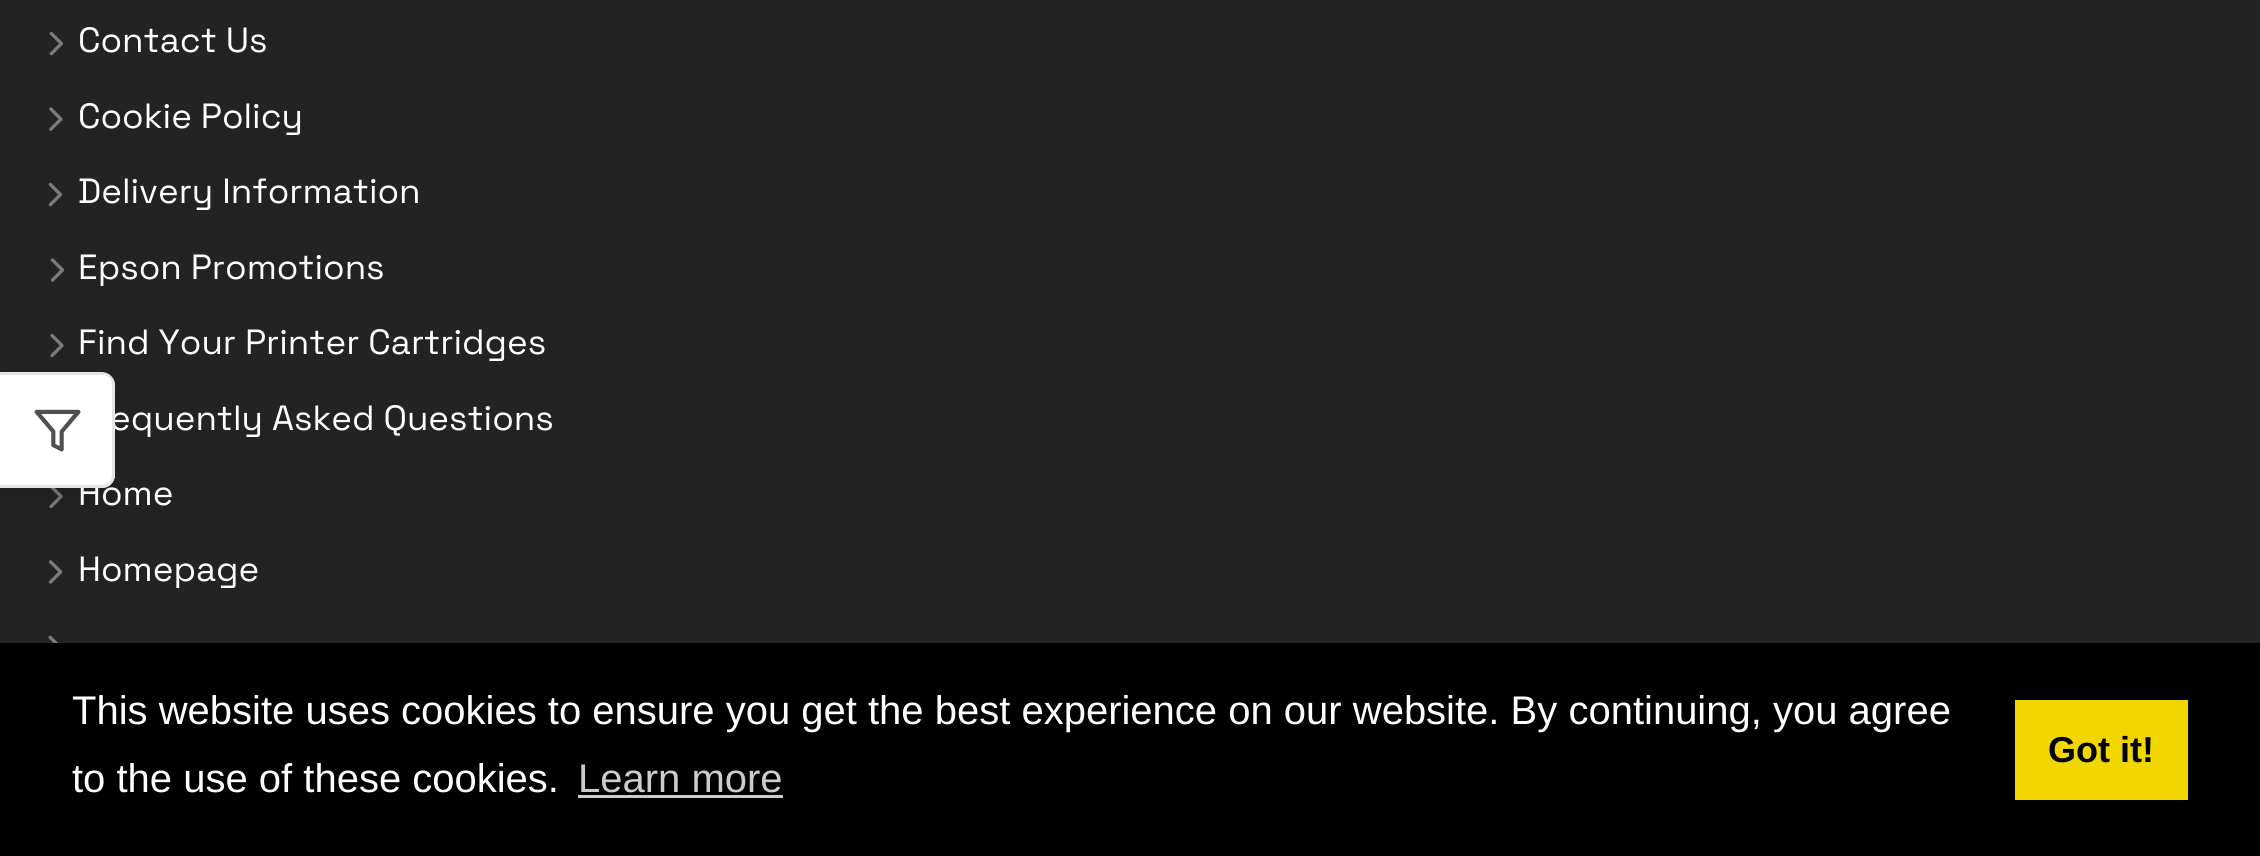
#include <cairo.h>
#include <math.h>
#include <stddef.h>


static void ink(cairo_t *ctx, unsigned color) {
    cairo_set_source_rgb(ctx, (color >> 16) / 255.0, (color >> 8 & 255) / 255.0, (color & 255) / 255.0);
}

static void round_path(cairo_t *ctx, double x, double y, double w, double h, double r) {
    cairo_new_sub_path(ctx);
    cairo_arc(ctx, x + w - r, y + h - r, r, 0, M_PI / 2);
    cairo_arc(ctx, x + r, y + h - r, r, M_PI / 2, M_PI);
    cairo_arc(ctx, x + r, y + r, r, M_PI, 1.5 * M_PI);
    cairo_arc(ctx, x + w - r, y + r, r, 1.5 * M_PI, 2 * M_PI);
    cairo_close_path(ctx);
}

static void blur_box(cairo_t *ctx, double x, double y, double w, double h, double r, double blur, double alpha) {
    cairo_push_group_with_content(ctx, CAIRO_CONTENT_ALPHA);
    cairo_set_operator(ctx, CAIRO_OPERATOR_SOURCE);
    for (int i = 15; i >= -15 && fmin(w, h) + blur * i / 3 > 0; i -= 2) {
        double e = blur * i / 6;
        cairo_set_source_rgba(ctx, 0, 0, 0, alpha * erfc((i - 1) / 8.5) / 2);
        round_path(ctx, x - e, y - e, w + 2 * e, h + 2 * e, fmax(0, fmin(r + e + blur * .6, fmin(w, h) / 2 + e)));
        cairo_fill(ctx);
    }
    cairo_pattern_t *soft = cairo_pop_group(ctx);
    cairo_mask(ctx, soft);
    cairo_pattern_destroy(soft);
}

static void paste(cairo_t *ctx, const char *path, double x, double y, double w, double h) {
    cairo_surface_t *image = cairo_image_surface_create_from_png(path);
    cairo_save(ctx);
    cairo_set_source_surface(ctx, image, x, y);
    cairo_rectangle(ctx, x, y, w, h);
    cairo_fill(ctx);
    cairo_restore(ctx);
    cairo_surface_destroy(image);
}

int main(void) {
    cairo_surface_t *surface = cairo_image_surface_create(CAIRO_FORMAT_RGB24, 2260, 856);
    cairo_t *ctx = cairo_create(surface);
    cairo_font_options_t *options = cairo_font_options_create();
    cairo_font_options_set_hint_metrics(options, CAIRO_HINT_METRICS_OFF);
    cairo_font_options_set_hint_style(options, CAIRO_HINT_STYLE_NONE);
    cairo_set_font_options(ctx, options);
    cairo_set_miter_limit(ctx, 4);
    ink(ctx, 0x232323);
    cairo_paint(ctx);
    paste(ctx, "media/6.png", 50, 333, 14, 25);
    paste(ctx, "media/7.png", 49, 488, 14, 21);
    ink(ctx, 0x000000);
    blur_box(ctx, 0, 380, 115, 115, 13, 12.5, 0.18);
    ink(ctx, 0xFFFFFF);
    cairo_new_path(ctx);
    cairo_move_to(ctx, 0, 373);
    cairo_line_to(ctx, 102, 373);
    cairo_curve_to(ctx, 109, 373, 115, 379, 115, 386);
    cairo_line_to(ctx, 115, 475);
    cairo_curve_to(ctx, 115, 482, 109, 488, 102, 488);
    cairo_line_to(ctx, 0, 488);
    cairo_close_path(ctx);
    cairo_fill(ctx);
    cairo_select_font_face(ctx, "Space Grotesk", CAIRO_FONT_SLANT_NORMAL, CAIRO_FONT_WEIGHT_NORMAL);
    cairo_set_font_size(ctx, 35);
    cairo_move_to(ctx, 110, 430);
    cairo_show_text(ctx, "equently Asked Questions");
    cairo_move_to(ctx, 78, 505);
    cairo_show_text(ctx, "Home");
    ink(ctx, 0xE5E5E5);
    cairo_set_fill_rule(ctx, CAIRO_FILL_RULE_EVEN_ODD);
    cairo_new_path(ctx);
    cairo_move_to(ctx, 0, 372);
    cairo_line_to(ctx, 102, 372);
    cairo_curve_to(ctx, 109, 372, 115, 378, 115, 385);
    cairo_line_to(ctx, 115, 475);
    cairo_curve_to(ctx, 115, 482, 109, 488, 102, 488);
    cairo_line_to(ctx, 0, 488);
    cairo_close_path(ctx);
    cairo_move_to(ctx, 0, 375);
    cairo_line_to(ctx, 102, 375);
    cairo_curve_to(ctx, 108, 375, 112, 379, 112, 385);
    cairo_line_to(ctx, 112, 475);
    cairo_curve_to(ctx, 112, 481, 108, 485, 102, 485);
    cairo_line_to(ctx, 0, 485);
    cairo_close_path(ctx);
    cairo_fill(ctx);
    paste(ctx, "media/1.png", 34, 409, 47, 43);
    paste(ctx, "media/2.png", 49, 31, 14, 25);
    ink(ctx, 0xFFFFFF);
    cairo_move_to(ctx, 78, 52);
    cairo_show_text(ctx, "Contact Us");
    paste(ctx, "media/3.png", 49, 107, 14, 24);
    cairo_move_to(ctx, 78, 128);
    cairo_show_text(ctx, "Cookie Policy");
    paste(ctx, "media/4.png", 48, 182, 15, 25);
    cairo_move_to(ctx, 78, 203);
    cairo_show_text(ctx, "Delivery Information");
    paste(ctx, "media/5.png", 50, 258, 15, 24);
    cairo_move_to(ctx, 78, 279);
    cairo_show_text(ctx, "Epson Promotions");
    cairo_move_to(ctx, 78, 354);
    cairo_show_text(ctx, "Find Your Printer Cartridges");
    paste(ctx, "media/8.png", 48, 560, 15, 24);
    cairo_move_to(ctx, 78, 581);
    cairo_show_text(ctx, "Homepage");
    paste(ctx, "media/9.png", 48, 635, 10, 8);
    ink(ctx, 0x000000);
    cairo_rectangle(ctx, 0, 643, 2260, 213);
    cairo_fill(ctx);
    cairo_select_font_face(ctx, "Liberation Sans", CAIRO_FONT_SLANT_NORMAL, CAIRO_FONT_WEIGHT_NORMAL);
    cairo_set_font_size(ctx, 40);
    ink(ctx, 0xFFFFFF);
    cairo_move_to(ctx, 72, 724);
    cairo_show_text(ctx, "This website uses cookies to ensure you get the best experience on our website. By continuing, you agree");
    cairo_move_to(ctx, 72, 792);
    cairo_show_text(ctx, "to the use of these cookies.");
    ink(ctx, 0xCCCCCC);
    cairo_move_to(ctx, 578, 792);
    cairo_show_text(ctx, "Learn more");
    cairo_rectangle(ctx, 578, 795, 205, 3);
    cairo_fill(ctx);
    ink(ctx, 0xF1D600);
    cairo_rectangle(ctx, 2015, 700, 173, 100);
    cairo_fill(ctx);
    cairo_select_font_face(ctx, "Liberation Sans", CAIRO_FONT_SLANT_NORMAL, CAIRO_FONT_WEIGHT_BOLD);
    cairo_set_font_size(ctx, 36);
    ink(ctx, 0x000000);
    cairo_move_to(ctx, 2048, 762);
    cairo_show_text(ctx, "Got it!");
    cairo_surface_write_to_png(surface, "image.png");
    cairo_font_options_destroy(options);
    cairo_destroy(ctx);
    cairo_surface_destroy(surface);
    return 0;
}
